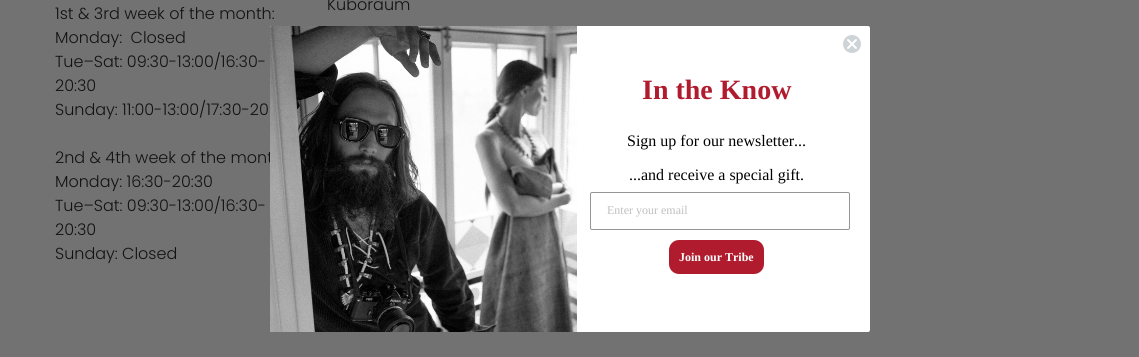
#include <cairo.h>
#include <math.h>
#include <stddef.h>

typedef struct { double x, y; const char *s; } line_t;

static void ink(cairo_t *ctx, unsigned color) {
    cairo_set_source_rgb(ctx, (color >> 16) / 255.0, (color >> 8 & 255) / 255.0, (color & 255) / 255.0);
}

static void write_spaced(cairo_t *ctx, double x, double y, const char *s, double letter, double word) {
    cairo_move_to(ctx, x, y);
    while (*s) {
        char ch[5] = {0};
        int n = 0;
        do ch[n++] = *s++; while ((*s & 0xC0) == 0x80);
        cairo_show_text(ctx, ch);
        cairo_rel_move_to(ctx, letter + word * (*ch == ' '), 0);
    }
}

static void round_path(cairo_t *ctx, double x, double y, double w, double h, double r) {
    cairo_new_sub_path(ctx);
    cairo_arc(ctx, x + w - r, y + h - r, r, 0, M_PI / 2);
    cairo_arc(ctx, x + r, y + h - r, r, M_PI / 2, M_PI);
    cairo_arc(ctx, x + r, y + r, r, M_PI, 1.5 * M_PI);
    cairo_arc(ctx, x + w - r, y + r, r, 1.5 * M_PI, 2 * M_PI);
    cairo_close_path(ctx);
}

static void paste(cairo_t *ctx, const char *path, double x, double y, double w, double h) {
    cairo_surface_t *image = cairo_image_surface_create_from_png(path);
    cairo_save(ctx);
    cairo_set_source_surface(ctx, image, x, y);
    cairo_rectangle(ctx, x, y, w, h);
    cairo_fill(ctx);
    cairo_restore(ctx);
    cairo_surface_destroy(image);
}

int main(void) {
    cairo_surface_t *surface = cairo_image_surface_create(CAIRO_FORMAT_RGB24, 1139, 357);
    cairo_t *ctx = cairo_create(surface);
    cairo_font_options_t *options = cairo_font_options_create();
    cairo_font_options_set_hint_metrics(options, CAIRO_HINT_METRICS_OFF);
    cairo_font_options_set_hint_style(options, CAIRO_HINT_STYLE_NONE);
    cairo_set_font_options(ctx, options);
    cairo_set_miter_limit(ctx, 4);
    ink(ctx, 0x727272);
    cairo_paint(ctx);
    cairo_select_font_face(ctx, "Poppins Light", CAIRO_FONT_SLANT_NORMAL, CAIRO_FONT_WEIGHT_NORMAL);
    cairo_set_font_size(ctx, 16);
    ink(ctx, 0x131212);
    cairo_move_to(ctx, 55, 19);
    cairo_show_text(ctx, "1st & 3rd week of the month:");
    write_spaced(ctx, 55, 43, "Monday: Closed", 0, 4);
    {
        static const line_t items[] = {
            {55, 67, "Tue–Sat: 09:30-13:00/16:30-"},
            {55, 91, "20:30"},
            {55, 115, "Sunday: 11:00-13:00/17:30-20"},
            {55, 163, "2nd & 4th week of the mont"},
            {55, 187, "Monday: 16:30-20:30"},
            {55, 211, "Tue–Sat: 09:30-13:00/16:30-"},
            {55, 235, "20:30"},
            {55, 259, "Sunday: Closed"},
            {327, 10, "Kuboraum"},
        };
        for (size_t i = 0; i < sizeof items / sizeof *items; i++) {
            cairo_move_to(ctx, items[i].x, items[i].y);
            cairo_show_text(ctx, items[i].s);
        }
    }
    ink(ctx, 0xFFFFFF);
    round_path(ctx, 270, 26, 600, 306, 2);
    cairo_fill(ctx);
    paste(ctx, "media/1.png", 843, 35, 18, 18);
    paste(ctx, "media/2.png", 270, 26, 307, 306);
    cairo_select_font_face(ctx, "Liberation Serif", CAIRO_FONT_SLANT_NORMAL, CAIRO_FONT_WEIGHT_BOLD);
    cairo_set_font_size(ctx, 28);
    ink(ctx, 0xB01C2E);
    cairo_move_to(ctx, 642, 99);
    cairo_show_text(ctx, "In the Know");
    cairo_select_font_face(ctx, "Liberation Serif", CAIRO_FONT_SLANT_NORMAL, CAIRO_FONT_WEIGHT_NORMAL);
    cairo_set_font_size(ctx, 16);
    ink(ctx, 0x000000);
    cairo_move_to(ctx, 627, 146);
    cairo_show_text(ctx, "Sign up for our newsletter...");
    cairo_move_to(ctx, 629, 180);
    cairo_show_text(ctx, "...and receive a special gift.");
    round_path(ctx, 590.5, 192.5, 259, 37, 1.5);
    ink(ctx, 0x949596);
    cairo_set_line_width(ctx, 1);
    cairo_stroke(ctx);
    cairo_set_font_size(ctx, 12);
    ink(ctx, 0xBFBFC0);
    cairo_move_to(ctx, 607, 214);
    cairo_show_text(ctx, "Enter your email");
    ink(ctx, 0xB01C2E);
    round_path(ctx, 669, 240, 95, 34, 10);
    cairo_fill(ctx);
    cairo_select_font_face(ctx, "Liberation Serif", CAIRO_FONT_SLANT_NORMAL, CAIRO_FONT_WEIGHT_BOLD);
    ink(ctx, 0xFFFFFF);
    cairo_move_to(ctx, 679, 261);
    cairo_show_text(ctx, "Join our Tribe");
    cairo_surface_write_to_png(surface, "image.png");
    cairo_font_options_destroy(options);
    cairo_destroy(ctx);
    cairo_surface_destroy(surface);
    return 0;
}
